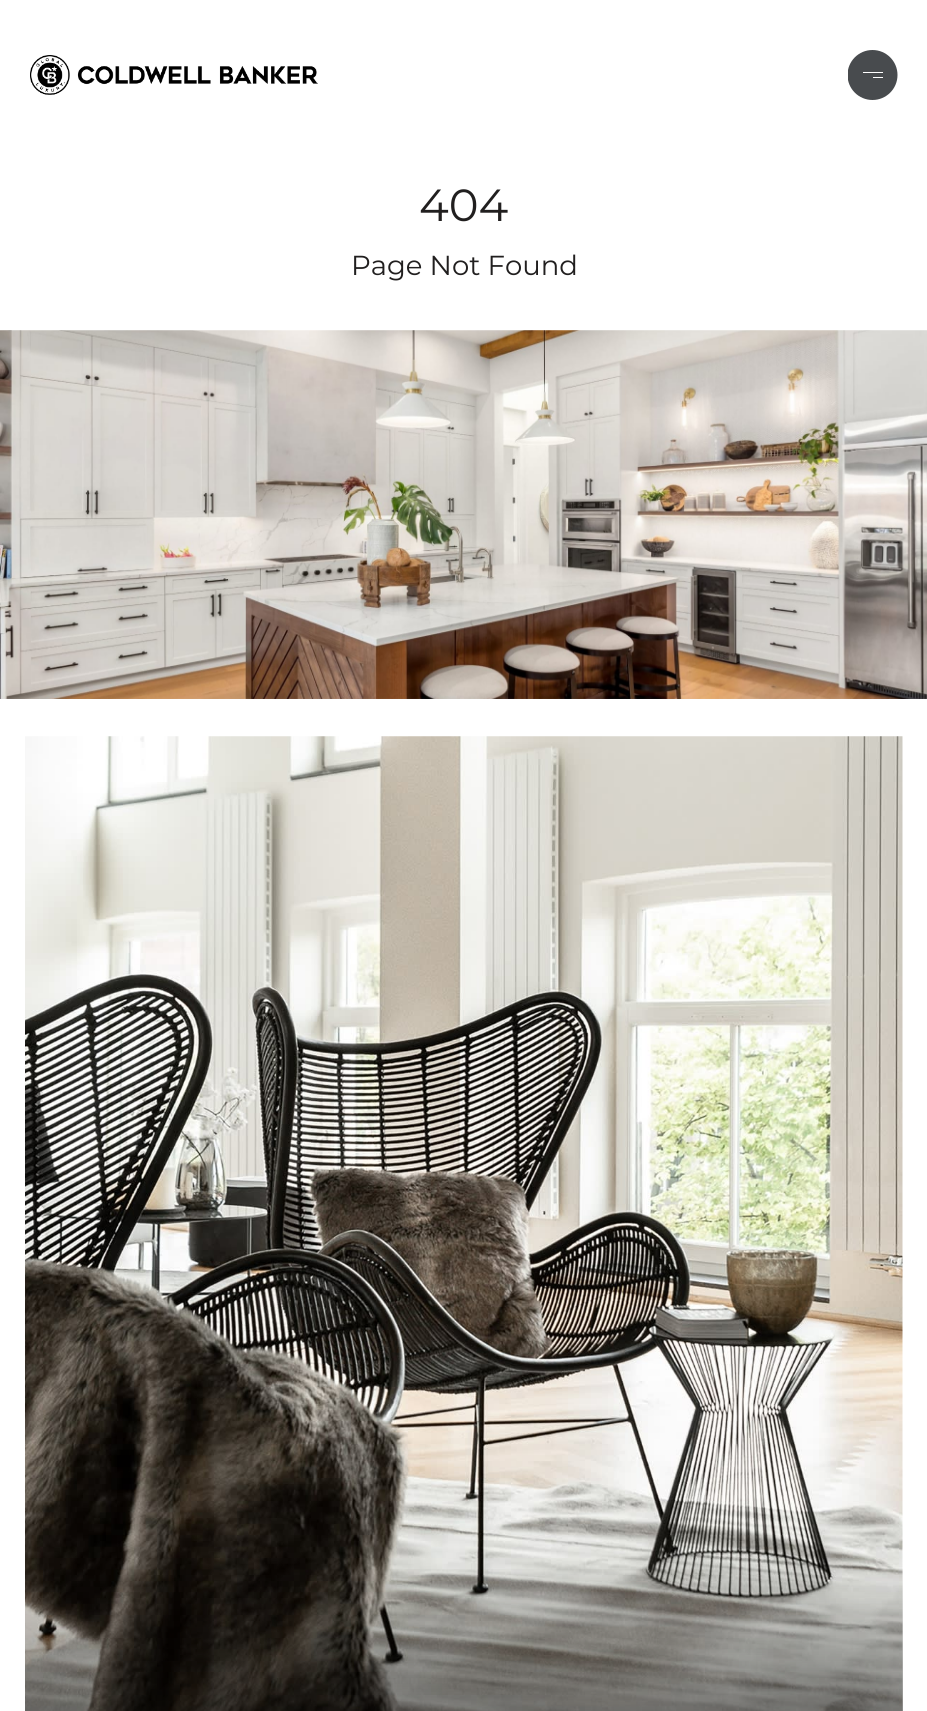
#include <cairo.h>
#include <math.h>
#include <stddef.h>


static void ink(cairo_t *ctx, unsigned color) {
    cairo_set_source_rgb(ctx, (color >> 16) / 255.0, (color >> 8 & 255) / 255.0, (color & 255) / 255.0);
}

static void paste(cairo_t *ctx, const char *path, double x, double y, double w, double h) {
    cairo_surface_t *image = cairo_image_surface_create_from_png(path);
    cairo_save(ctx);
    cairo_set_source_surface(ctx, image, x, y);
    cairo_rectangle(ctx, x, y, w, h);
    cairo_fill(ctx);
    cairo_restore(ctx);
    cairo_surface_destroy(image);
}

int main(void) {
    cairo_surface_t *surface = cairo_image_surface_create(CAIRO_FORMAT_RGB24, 927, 1711);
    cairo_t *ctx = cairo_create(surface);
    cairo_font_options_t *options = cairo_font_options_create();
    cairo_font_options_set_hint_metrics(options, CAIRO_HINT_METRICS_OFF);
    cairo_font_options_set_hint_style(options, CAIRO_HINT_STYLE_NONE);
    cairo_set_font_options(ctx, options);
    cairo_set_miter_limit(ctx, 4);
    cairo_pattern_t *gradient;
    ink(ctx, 0xFFFFFF);
    cairo_paint(ctx);
    paste(ctx, "media/1.png", 30, 55, 288, 40);
    cairo_save(ctx);
    cairo_rectangle(ctx, 848, 50, 50, 50);
    cairo_clip(ctx);
    ink(ctx, 0x484B4E);
    cairo_arc(ctx, 872.5, 75, 25, 0, 2 * M_PI);
    cairo_fill(ctx);
    cairo_restore(ctx);
    ink(ctx, 0xFFFFFF);
    cairo_rectangle(ctx, 863, 72, 20, 1);
    cairo_fill(ctx);
    cairo_rectangle(ctx, 873, 77, 10, 1);
    cairo_fill(ctx);
    cairo_select_font_face(ctx, "Montserrat", CAIRO_FONT_SLANT_NORMAL, CAIRO_FONT_WEIGHT_NORMAL);
    cairo_set_font_size(ctx, 45);
    ink(ctx, 0x211F1F);
    cairo_move_to(ctx, 419, 221);
    cairo_show_text(ctx, "404");
    cairo_set_font_size(ctx, 27.5);
    cairo_move_to(ctx, 351, 275);
    cairo_show_text(ctx, "Page Not Found");
    paste(ctx, "media/2.png", 0, 330, 927, 369);
    paste(ctx, "media/3.png", 25, 736, 878, 975);
    gradient = cairo_pattern_create_linear(464, 736, 464, 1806);
    cairo_pattern_add_color_stop_rgba(gradient, 0.77, 0, 0, 0, 0);
    cairo_pattern_add_color_stop_rgba(gradient, 1, 0, 0, 0, 0.6);
    cairo_set_source(ctx, gradient);
    cairo_pattern_destroy(gradient);
    cairo_rectangle(ctx, 25, 1569, 878, 142);
    cairo_fill(ctx);
    cairo_surface_write_to_png(surface, "image.png");
    cairo_font_options_destroy(options);
    cairo_destroy(ctx);
    cairo_surface_destroy(surface);
    return 0;
}
